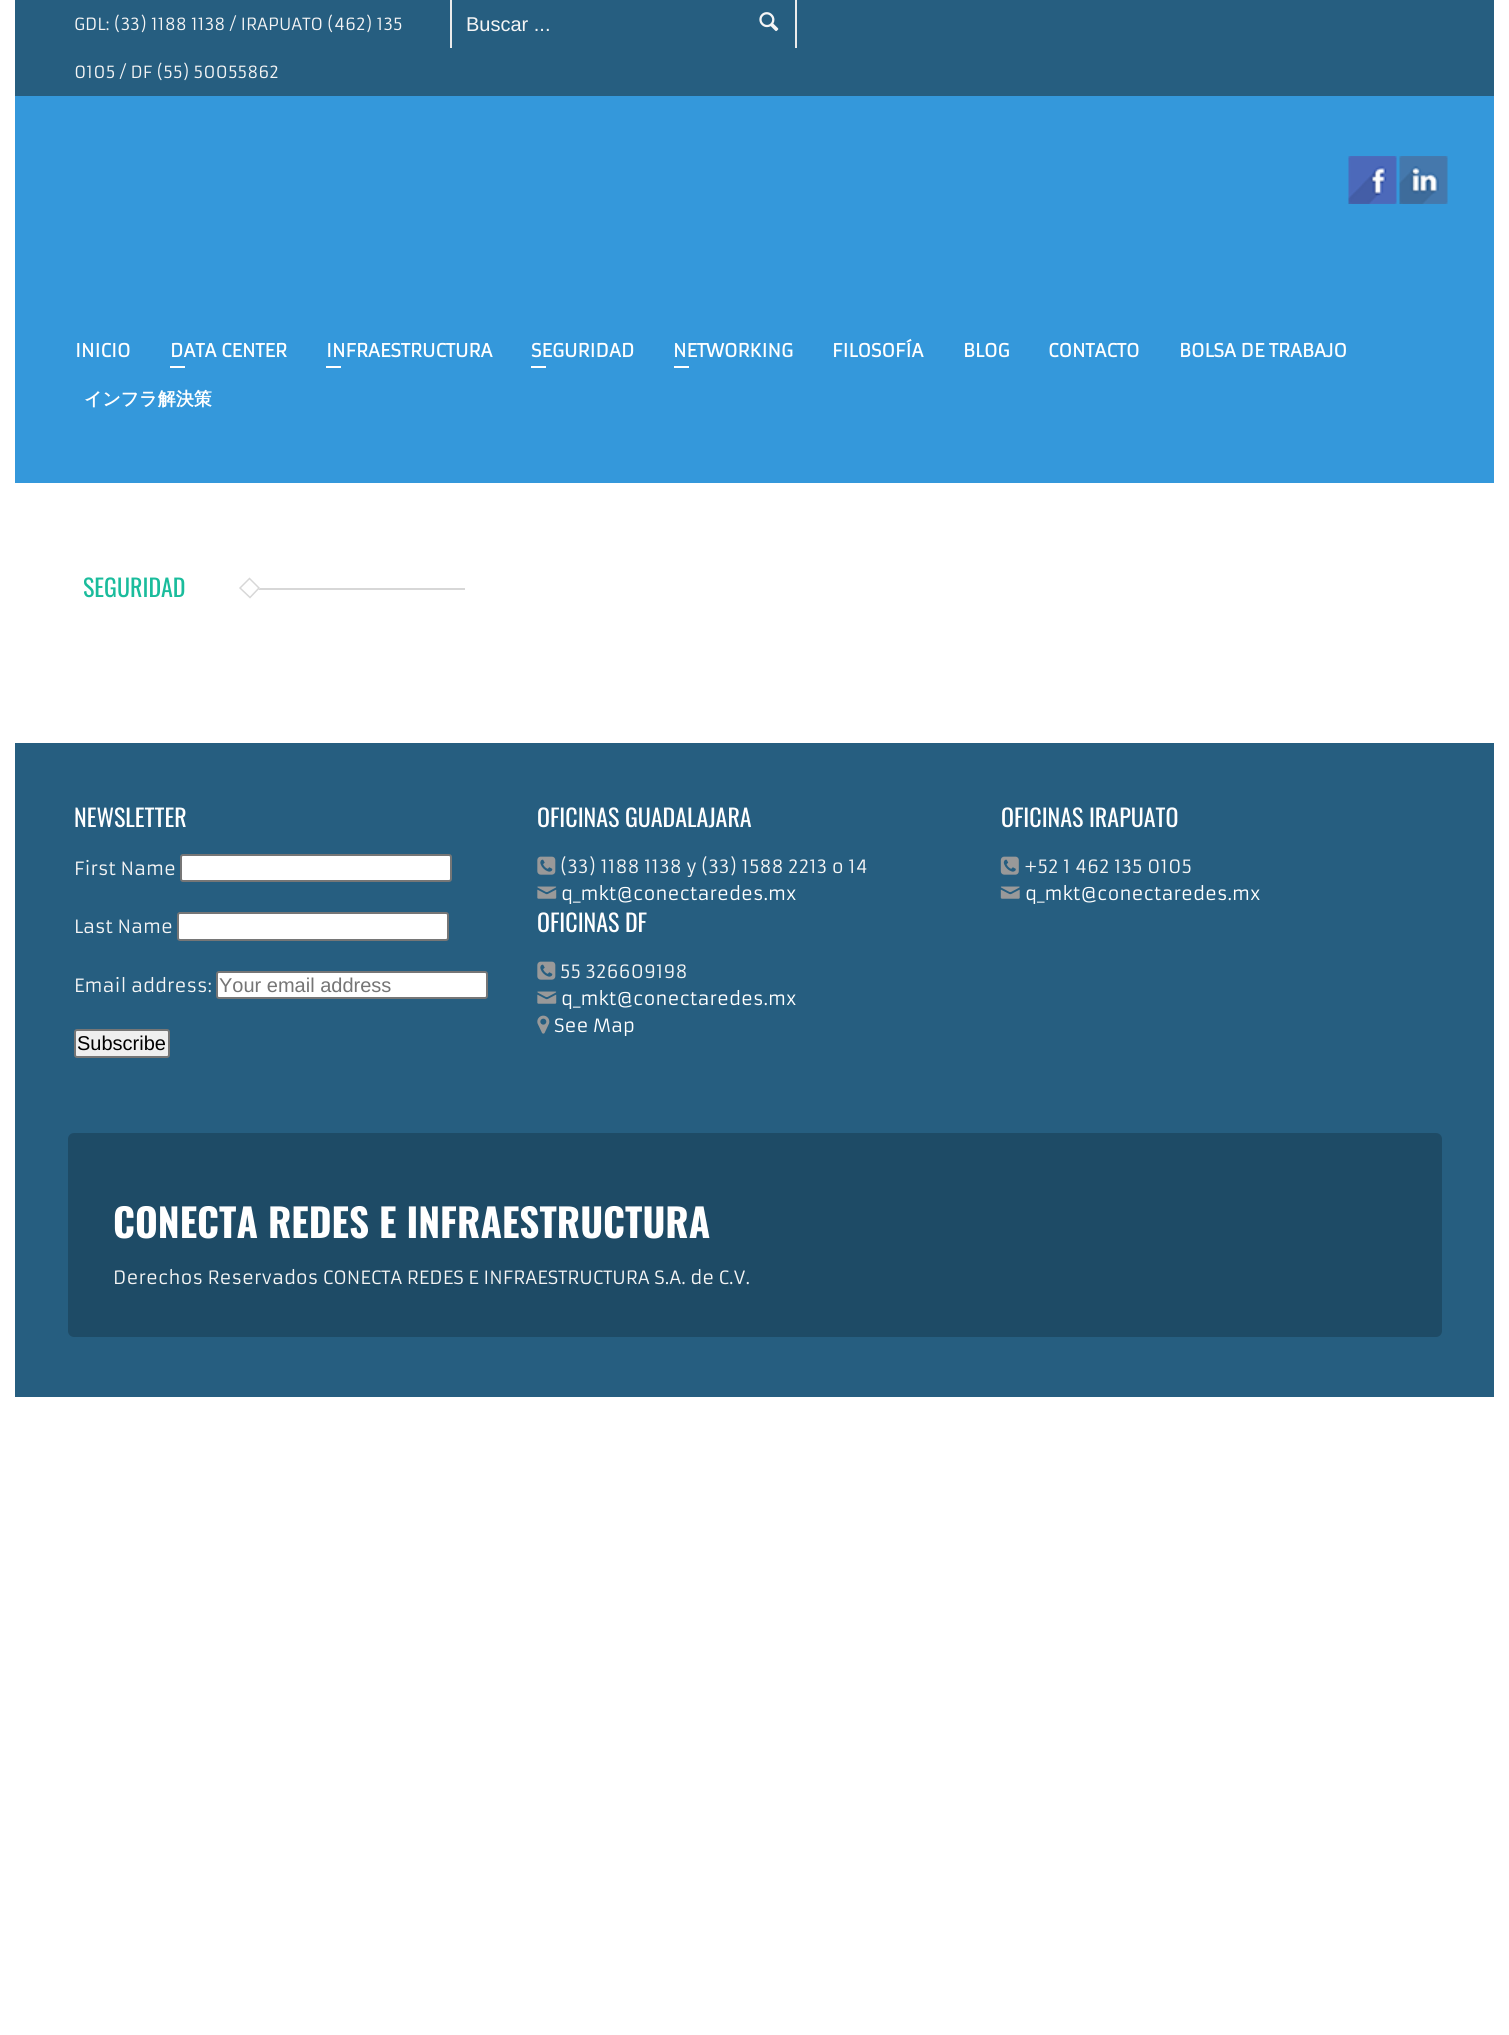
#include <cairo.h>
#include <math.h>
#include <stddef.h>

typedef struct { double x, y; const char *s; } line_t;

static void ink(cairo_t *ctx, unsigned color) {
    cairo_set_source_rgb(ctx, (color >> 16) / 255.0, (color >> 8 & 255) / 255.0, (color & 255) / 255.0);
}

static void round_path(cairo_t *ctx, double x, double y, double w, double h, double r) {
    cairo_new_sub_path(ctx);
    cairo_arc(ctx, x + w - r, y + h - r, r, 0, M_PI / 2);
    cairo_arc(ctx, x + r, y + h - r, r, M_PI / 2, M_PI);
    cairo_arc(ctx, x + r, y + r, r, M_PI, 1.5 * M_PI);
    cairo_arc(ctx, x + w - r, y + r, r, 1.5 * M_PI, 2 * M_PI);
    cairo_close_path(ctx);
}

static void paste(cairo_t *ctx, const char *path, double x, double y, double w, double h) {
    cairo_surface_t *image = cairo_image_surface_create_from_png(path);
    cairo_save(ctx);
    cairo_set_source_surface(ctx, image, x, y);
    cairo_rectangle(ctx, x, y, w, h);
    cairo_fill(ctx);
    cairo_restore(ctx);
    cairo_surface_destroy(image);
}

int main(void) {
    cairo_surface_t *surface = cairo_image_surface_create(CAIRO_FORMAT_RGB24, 1509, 2035);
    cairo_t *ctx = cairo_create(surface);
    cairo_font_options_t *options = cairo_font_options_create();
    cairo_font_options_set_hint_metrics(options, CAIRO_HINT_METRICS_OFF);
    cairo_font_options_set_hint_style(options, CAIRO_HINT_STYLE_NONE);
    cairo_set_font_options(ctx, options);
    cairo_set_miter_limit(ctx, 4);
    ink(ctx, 0xFFFFFF);
    cairo_paint(ctx);
    ink(ctx, 0x265E80);
    cairo_rectangle(ctx, 15, 0, 1479, 96);
    cairo_fill(ctx);
    cairo_select_font_face(ctx, "Armata", CAIRO_FONT_SLANT_NORMAL, CAIRO_FONT_WEIGHT_NORMAL);
    cairo_set_font_size(ctx, 16.5);
    ink(ctx, 0xF5F5F5);
    cairo_move_to(ctx, 74, 30);
    cairo_show_text(ctx, "GDL: (33) 1188 1138 / IRAPUATO (462) 135");
    cairo_move_to(ctx, 74, 78);
    cairo_show_text(ctx, "0105 / DF (55) 50055862");
    ink(ctx, 0xEBEBEB);
    cairo_rectangle(ctx, 795, 0, 2, 48);
    cairo_fill(ctx);
    cairo_rectangle(ctx, 450, 0, 2, 48);
    cairo_fill(ctx);
    cairo_select_font_face(ctx, "Liberation Sans", CAIRO_FONT_SLANT_NORMAL, CAIRO_FONT_WEIGHT_NORMAL);
    cairo_set_font_size(ctx, 20);
    ink(ctx, 0xF5F5F5);
    cairo_move_to(ctx, 466, 31);
    cairo_show_text(ctx, "Buscar ...");
    paste(ctx, "media/1.png", 759, 12, 20, 20);
    ink(ctx, 0x3498DB);
    cairo_rectangle(ctx, 15, 96, 1479, 387);
    cairo_fill(ctx);
    paste(ctx, "media/2.png", 1348, 156, 49, 48);
    paste(ctx, "media/3.png", 1399, 156, 49, 48);
    cairo_select_font_face(ctx, "Armata", CAIRO_FONT_SLANT_NORMAL, CAIRO_FONT_WEIGHT_BOLD);
    cairo_set_font_size(ctx, 18);
    ink(ctx, 0xFFFFFF);
    cairo_move_to(ctx, 75, 357);
    cairo_show_text(ctx, "INICIO");
    cairo_move_to(ctx, 170, 357);
    cairo_show_text(ctx, "DATA CENTER");
    cairo_rectangle(ctx, 170, 366, 15, 2);
    cairo_fill(ctx);
    cairo_move_to(ctx, 326, 357);
    cairo_show_text(ctx, "INFRAESTRUCTURA");
    cairo_rectangle(ctx, 326, 366, 15, 2);
    cairo_fill(ctx);
    cairo_move_to(ctx, 531, 357);
    cairo_show_text(ctx, "SEGURIDAD");
    cairo_rectangle(ctx, 531, 366, 15, 2);
    cairo_fill(ctx);
    cairo_move_to(ctx, 673, 357);
    cairo_show_text(ctx, "NETWORKING");
    cairo_rectangle(ctx, 674, 366, 15, 2);
    cairo_fill(ctx);
    {
        static const line_t items[] = {
            {832, 357, "FILOSOFÍA"},
            {963, 357, "BLOG"},
            {1048, 357, "CONTACTO"},
            {1179, 357, "BOLSA DE TRABAJO"},
        };
        for (size_t i = 0; i < sizeof items / sizeof *items; i++) {
            cairo_move_to(ctx, items[i].x, items[i].y);
            cairo_show_text(ctx, items[i].s);
        }
    }
    cairo_select_font_face(ctx, "WenQuanYi Zen Hei", CAIRO_FONT_SLANT_NORMAL, CAIRO_FONT_WEIGHT_BOLD);
    cairo_move_to(ctx, 84, 405);
    cairo_show_text(ctx, "インフラ解決策");
    cairo_select_font_face(ctx, "Oswald", CAIRO_FONT_SLANT_NORMAL, CAIRO_FONT_WEIGHT_NORMAL);
    cairo_set_font_size(ctx, 24);
    ink(ctx, 0x1ABC9C);
    cairo_move_to(ctx, 83, 597);
    cairo_show_text(ctx, "SEGURIDAD");
    ink(ctx, 0xD7D7D7);
    cairo_rectangle(ctx, 258, 588, 207, 2);
    cairo_fill(ctx);
    ink(ctx, 0xFFFFFF);
    cairo_new_path(ctx);
    cairo_move_to(ctx, 239, 588);
    cairo_line_to(ctx, 249.5, 577.5);
    cairo_line_to(ctx, 260, 588);
    cairo_line_to(ctx, 250, 598.5);
    cairo_close_path(ctx);
    cairo_fill(ctx);
    cairo_new_path(ctx);
    cairo_move_to(ctx, 240, 588);
    cairo_line_to(ctx, 249.5, 578.5);
    cairo_line_to(ctx, 259, 588);
    cairo_line_to(ctx, 250, 597.5);
    cairo_close_path(ctx);
    ink(ctx, 0xD7D7D7);
    cairo_set_line_width(ctx, 1.5);
    cairo_stroke(ctx);
    ink(ctx, 0x265E80);
    cairo_rectangle(ctx, 15, 743, 1479, 654);
    cairo_fill(ctx);
    ink(ctx, 0xFFFFFF);
    cairo_move_to(ctx, 74, 827);
    cairo_show_text(ctx, "NEWSLETTER");
    cairo_select_font_face(ctx, "Armata", CAIRO_FONT_SLANT_NORMAL, CAIRO_FONT_WEIGHT_NORMAL);
    cairo_set_font_size(ctx, 18);
    ink(ctx, 0xF5F5F5);
    cairo_move_to(ctx, 74, 875);
    cairo_show_text(ctx, "First Name");
    ink(ctx, 0xFFFFFF);
    round_path(ctx, 181, 855, 270, 26, 2);
    cairo_fill_preserve(ctx);
    ink(ctx, 0x767676);
    cairo_set_line_width(ctx, 2);
    cairo_stroke(ctx);
    ink(ctx, 0xF5F5F5);
    cairo_move_to(ctx, 74, 933);
    cairo_show_text(ctx, "Last Name");
    ink(ctx, 0xFFFFFF);
    round_path(ctx, 178, 913, 270, 27, 2);
    cairo_fill_preserve(ctx);
    ink(ctx, 0x767676);
    cairo_stroke(ctx);
    ink(ctx, 0xF5F5F5);
    cairo_move_to(ctx, 74, 992);
    cairo_show_text(ctx, "Email address:");
    ink(ctx, 0xFFFFFF);
    round_path(ctx, 217, 972, 270, 26, 2);
    cairo_fill_preserve(ctx);
    ink(ctx, 0x767676);
    cairo_stroke(ctx);
    cairo_select_font_face(ctx, "Liberation Sans", CAIRO_FONT_SLANT_NORMAL, CAIRO_FONT_WEIGHT_NORMAL);
    cairo_set_font_size(ctx, 20);
    ink(ctx, 0x757575);
    cairo_move_to(ctx, 219, 992);
    cairo_show_text(ctx, "Your email address");
    ink(ctx, 0xEFEFEF);
    round_path(ctx, 75, 1030, 94, 27, 2);
    cairo_fill_preserve(ctx);
    ink(ctx, 0x767676);
    cairo_stroke(ctx);
    ink(ctx, 0x000000);
    cairo_move_to(ctx, 77, 1050);
    cairo_show_text(ctx, "Subscribe");
    cairo_select_font_face(ctx, "Oswald", CAIRO_FONT_SLANT_NORMAL, CAIRO_FONT_WEIGHT_NORMAL);
    cairo_set_font_size(ctx, 24);
    ink(ctx, 0xFFFFFF);
    cairo_move_to(ctx, 537, 827);
    cairo_show_text(ctx, "OFICINAS GUADALAJARA");
    paste(ctx, "media/4.png", 537, 856, 19, 19);
    cairo_select_font_face(ctx, "Armata", CAIRO_FONT_SLANT_NORMAL, CAIRO_FONT_WEIGHT_NORMAL);
    cairo_set_font_size(ctx, 18);
    ink(ctx, 0xF5F5F5);
    cairo_move_to(ctx, 560, 873);
    cairo_show_text(ctx, "(33) 1188 1138 y (33) 1588 2213 o 14");
    paste(ctx, "media/5.png", 537, 886, 20, 13);
    ink(ctx, 0xFFFFFF);
    cairo_move_to(ctx, 561, 900);
    cairo_show_text(ctx, "q_mkt@conectaredes.mx");
    cairo_select_font_face(ctx, "Oswald", CAIRO_FONT_SLANT_NORMAL, CAIRO_FONT_WEIGHT_NORMAL);
    cairo_set_font_size(ctx, 24);
    cairo_move_to(ctx, 1001, 827);
    cairo_show_text(ctx, "OFICINAS IRAPUATO");
    paste(ctx, "media/6.png", 1000, 856, 19, 19);
    cairo_select_font_face(ctx, "Armata", CAIRO_FONT_SLANT_NORMAL, CAIRO_FONT_WEIGHT_NORMAL);
    cairo_set_font_size(ctx, 18);
    ink(ctx, 0xF5F5F5);
    cairo_move_to(ctx, 1024, 873);
    cairo_show_text(ctx, "+52 1 462 135 0105");
    paste(ctx, "media/7.png", 1000, 886, 20, 13);
    ink(ctx, 0xFFFFFF);
    cairo_move_to(ctx, 1025, 900);
    cairo_show_text(ctx, "q_mkt@conectaredes.mx");
    cairo_select_font_face(ctx, "Oswald", CAIRO_FONT_SLANT_NORMAL, CAIRO_FONT_WEIGHT_NORMAL);
    cairo_set_font_size(ctx, 24);
    cairo_move_to(ctx, 537, 932);
    cairo_show_text(ctx, "OFICINAS DF");
    paste(ctx, "media/4.png", 537, 961, 19, 19);
    cairo_select_font_face(ctx, "Armata", CAIRO_FONT_SLANT_NORMAL, CAIRO_FONT_WEIGHT_NORMAL);
    cairo_set_font_size(ctx, 18);
    ink(ctx, 0xF5F5F5);
    cairo_move_to(ctx, 560, 978);
    cairo_show_text(ctx, "55 326609198");
    paste(ctx, "media/5.png", 537, 991, 20, 13);
    ink(ctx, 0xFFFFFF);
    cairo_move_to(ctx, 561, 1005);
    cairo_show_text(ctx, "q_mkt@conectaredes.mx");
    paste(ctx, "media/8.png", 537, 1015, 13, 19);
    cairo_move_to(ctx, 554, 1032);
    cairo_show_text(ctx, "See Map");
    ink(ctx, 0x1E4B66);
    round_path(ctx, 68, 1133, 1374, 204, 6);
    cairo_fill(ctx);
    cairo_select_font_face(ctx, "Oswald", CAIRO_FONT_SLANT_NORMAL, CAIRO_FONT_WEIGHT_BOLD);
    cairo_set_font_size(ctx, 39);
    ink(ctx, 0xFFFFFF);
    cairo_move_to(ctx, 113, 1238);
    cairo_show_text(ctx, "CONECTA REDES E INFRAESTRUCTURA");
    cairo_select_font_face(ctx, "Armata", CAIRO_FONT_SLANT_NORMAL, CAIRO_FONT_WEIGHT_NORMAL);
    cairo_set_font_size(ctx, 18);
    ink(ctx, 0xF5F5F5);
    cairo_move_to(ctx, 113, 1284);
    cairo_show_text(ctx, "Derechos Reservados CONECTA REDES E INFRAESTRUCTURA S.A. de C.V.");
    cairo_surface_write_to_png(surface, "image.png");
    cairo_font_options_destroy(options);
    cairo_destroy(ctx);
    cairo_surface_destroy(surface);
    return 0;
}
